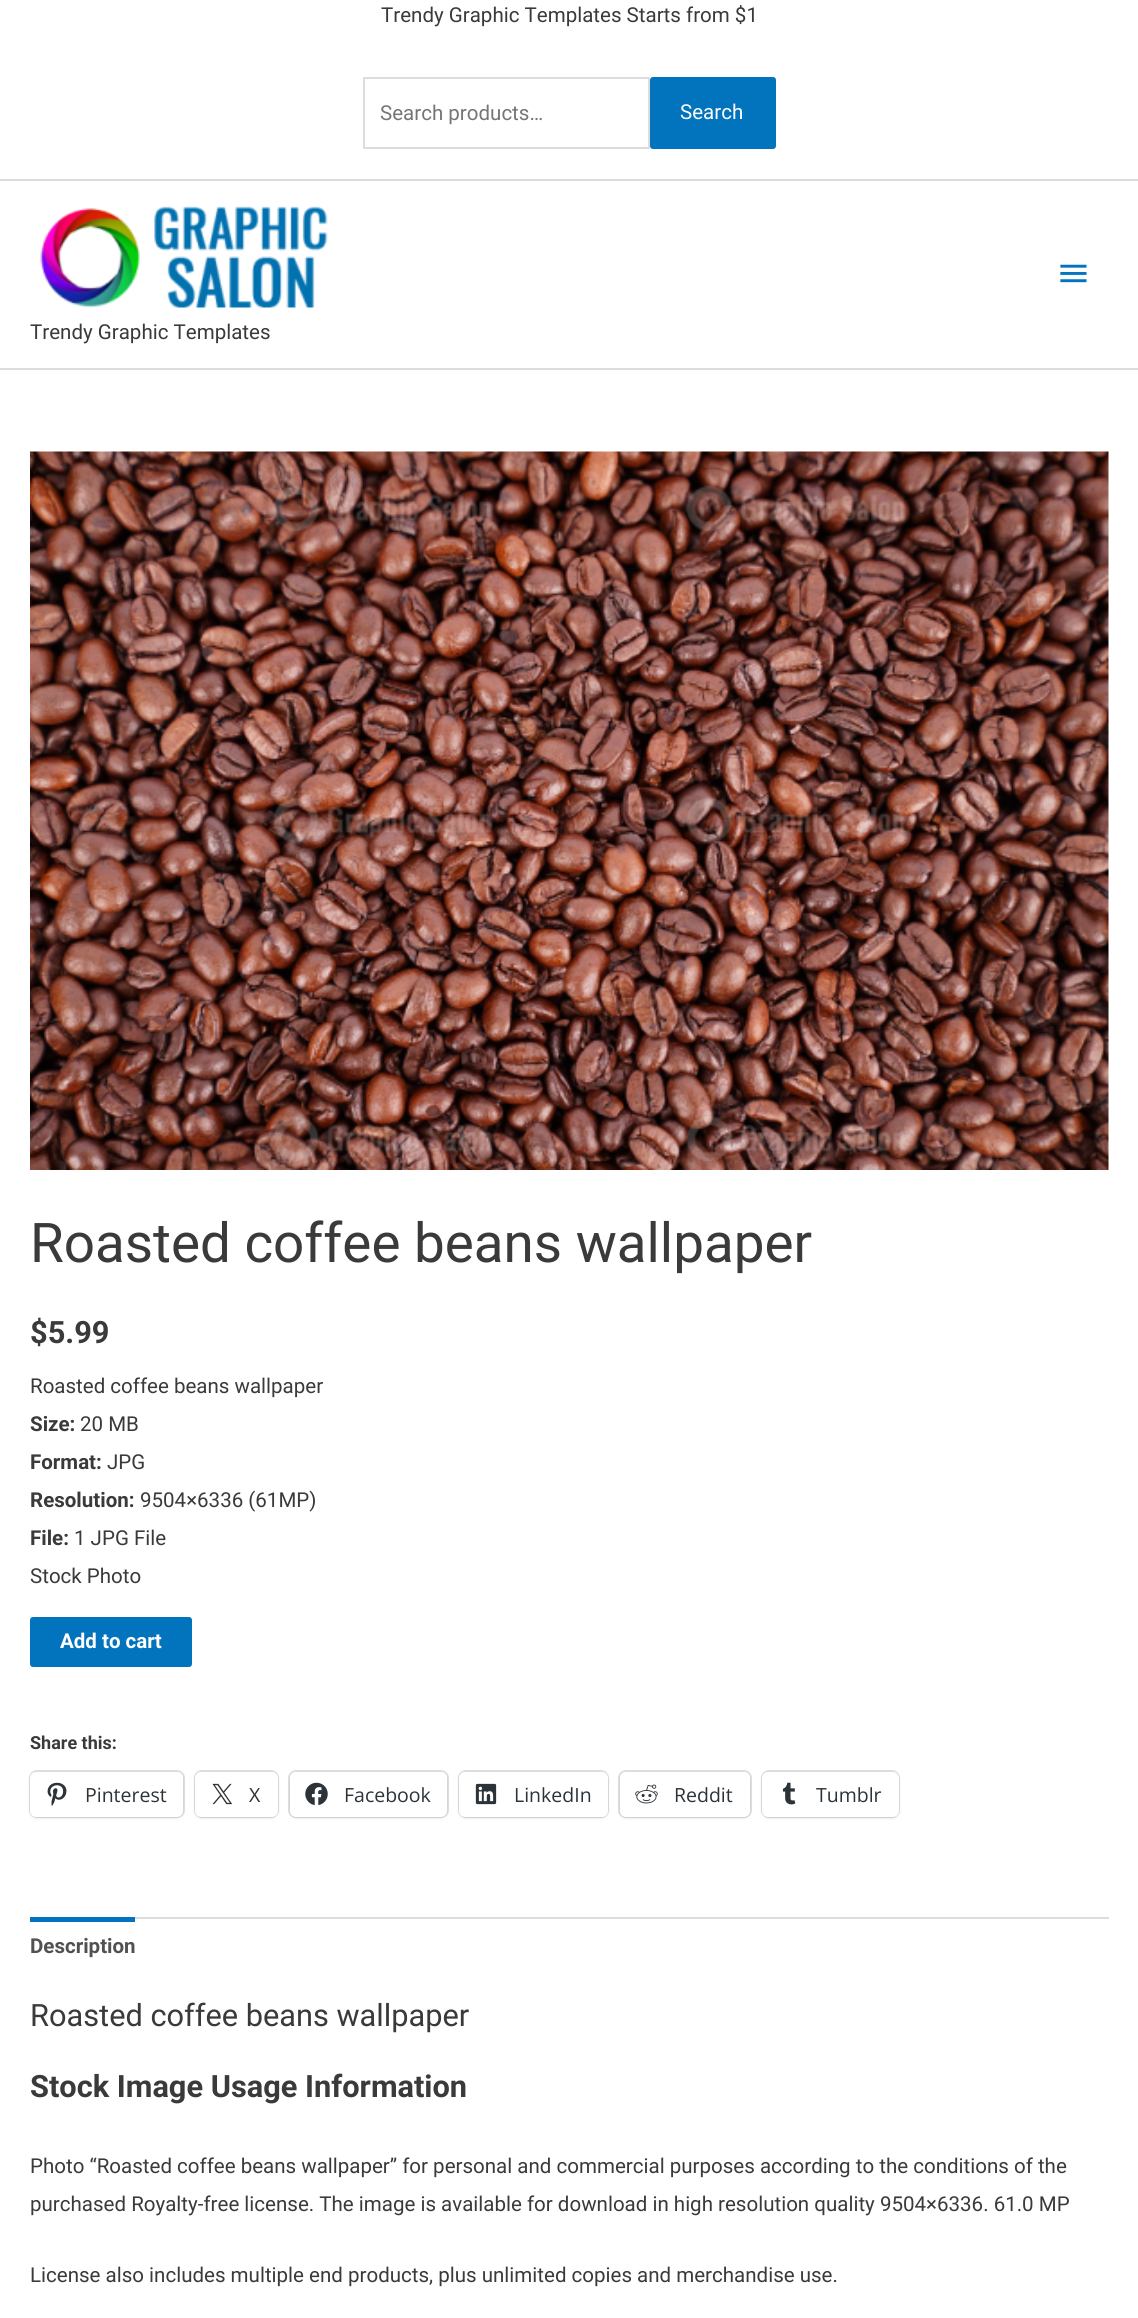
#include <cairo.h>
#include <math.h>
#include <stddef.h>

typedef struct { double x, y; const char *s; } line_t;

static void ink(cairo_t *ctx, unsigned color) {
    cairo_set_source_rgb(ctx, (color >> 16) / 255.0, (color >> 8 & 255) / 255.0, (color & 255) / 255.0);
}

static void round_path(cairo_t *ctx, double x, double y, double w, double h, double r) {
    cairo_new_sub_path(ctx);
    cairo_arc(ctx, x + w - r, y + h - r, r, 0, M_PI / 2);
    cairo_arc(ctx, x + r, y + h - r, r, M_PI / 2, M_PI);
    cairo_arc(ctx, x + r, y + r, r, M_PI, 1.5 * M_PI);
    cairo_arc(ctx, x + w - r, y + r, r, 1.5 * M_PI, 2 * M_PI);
    cairo_close_path(ctx);
}

static void blur_box(cairo_t *ctx, double x, double y, double w, double h, double r, double blur, double alpha) {
    cairo_push_group_with_content(ctx, CAIRO_CONTENT_ALPHA);
    cairo_set_operator(ctx, CAIRO_OPERATOR_SOURCE);
    for (int i = 15; i >= -15 && fmin(w, h) + blur * i / 3 > 0; i -= 2) {
        double e = blur * i / 6;
        cairo_set_source_rgba(ctx, 0, 0, 0, alpha * erfc((i - 1) / 8.5) / 2);
        round_path(ctx, x - e, y - e, w + 2 * e, h + 2 * e, fmax(0, fmin(r + e + blur * .6, fmin(w, h) / 2 + e)));
        cairo_fill(ctx);
    }
    cairo_pattern_t *soft = cairo_pop_group(ctx);
    cairo_mask(ctx, soft);
    cairo_pattern_destroy(soft);
}

static void paste(cairo_t *ctx, const char *path, double x, double y, double w, double h) {
    cairo_surface_t *image = cairo_image_surface_create_from_png(path);
    cairo_save(ctx);
    cairo_set_source_surface(ctx, image, x, y);
    cairo_rectangle(ctx, x, y, w, h);
    cairo_fill(ctx);
    cairo_restore(ctx);
    cairo_surface_destroy(image);
}

int main(void) {
    cairo_surface_t *surface = cairo_image_surface_create(CAIRO_FORMAT_RGB24, 1138, 2318);
    cairo_t *ctx = cairo_create(surface);
    cairo_font_options_t *options = cairo_font_options_create();
    cairo_font_options_set_hint_metrics(options, CAIRO_HINT_METRICS_OFF);
    cairo_font_options_set_hint_style(options, CAIRO_HINT_STYLE_NONE);
    cairo_set_font_options(ctx, options);
    cairo_set_miter_limit(ctx, 4);
    ink(ctx, 0xFFFFFF);
    cairo_paint(ctx);
    ink(ctx, 0xDDDDDD);
    cairo_rectangle(ctx, 0, 179, 1138, 2);
    cairo_fill(ctx);
    cairo_select_font_face(ctx, "Roboto", CAIRO_FONT_SLANT_NORMAL, CAIRO_FONT_WEIGHT_NORMAL);
    cairo_set_font_size(ctx, 20.52);
    ink(ctx, 0x3A3A3A);
    cairo_move_to(ctx, 381, 22);
    cairo_show_text(ctx, "Trendy Graphic Templates Starts from $1");
    cairo_rectangle(ctx, 364, 78, 285, 70);
    ink(ctx, 0xDDDDDD);
    cairo_stroke(ctx);
    ink(ctx, 0x757575);
    cairo_move_to(ctx, 380, 120);
    cairo_show_text(ctx, "Search products…");
    ink(ctx, 0x0274BE);
    round_path(ctx, 651, 78, 124, 70, 2);
    cairo_fill_preserve(ctx);
    cairo_stroke(ctx);
    ink(ctx, 0xFFFFFF);
    cairo_move_to(ctx, 680, 119);
    cairo_show_text(ctx, "Search");
    ink(ctx, 0xDDDDDD);
    cairo_rectangle(ctx, 0, 368, 1138, 2);
    cairo_fill(ctx);
    paste(ctx, "media/1.png", 1060, 264, 27, 19);
    paste(ctx, "media/2.png", 40, 206, 288, 102);
    ink(ctx, 0x3A3A3A);
    cairo_move_to(ctx, 30, 339);
    cairo_show_text(ctx, "Trendy Graphic Templates");
    paste(ctx, "media/3.png", 30, 451, 1079, 719);
    cairo_set_font_size(ctx, 54.75);
    cairo_move_to(ctx, 30, 1262);
    cairo_show_text(ctx, "Roasted coffee beans wallpaper");
    cairo_select_font_face(ctx, "Roboto", CAIRO_FONT_SLANT_NORMAL, CAIRO_FONT_WEIGHT_BOLD);
    cairo_set_font_size(ctx, 30.75);
    cairo_move_to(ctx, 30, 1343);
    cairo_show_text(ctx, "$5.99");
    cairo_select_font_face(ctx, "Roboto", CAIRO_FONT_SLANT_NORMAL, CAIRO_FONT_WEIGHT_NORMAL);
    cairo_set_font_size(ctx, 20.52);
    cairo_move_to(ctx, 30, 1393);
    cairo_show_text(ctx, "Roasted coffee beans wallpaper");
    cairo_select_font_face(ctx, "Roboto", CAIRO_FONT_SLANT_NORMAL, CAIRO_FONT_WEIGHT_BOLD);
    cairo_move_to(ctx, 30, 1431);
    cairo_show_text(ctx, "Size:");
    cairo_select_font_face(ctx, "Roboto", CAIRO_FONT_SLANT_NORMAL, CAIRO_FONT_WEIGHT_NORMAL);
    cairo_move_to(ctx, 80, 1431);
    cairo_show_text(ctx, "20 MB");
    cairo_select_font_face(ctx, "Roboto", CAIRO_FONT_SLANT_NORMAL, CAIRO_FONT_WEIGHT_BOLD);
    cairo_move_to(ctx, 30, 1469);
    cairo_show_text(ctx, "Format:");
    cairo_select_font_face(ctx, "Roboto", CAIRO_FONT_SLANT_NORMAL, CAIRO_FONT_WEIGHT_NORMAL);
    cairo_move_to(ctx, 107, 1469);
    cairo_show_text(ctx, "JPG");
    cairo_select_font_face(ctx, "Roboto", CAIRO_FONT_SLANT_NORMAL, CAIRO_FONT_WEIGHT_BOLD);
    cairo_move_to(ctx, 30, 1507);
    cairo_show_text(ctx, "Resolution:");
    cairo_select_font_face(ctx, "Roboto", CAIRO_FONT_SLANT_NORMAL, CAIRO_FONT_WEIGHT_NORMAL);
    cairo_move_to(ctx, 140, 1507);
    cairo_show_text(ctx, "9504×6336 (61MP)");
    cairo_select_font_face(ctx, "Roboto", CAIRO_FONT_SLANT_NORMAL, CAIRO_FONT_WEIGHT_BOLD);
    cairo_move_to(ctx, 30, 1545);
    cairo_show_text(ctx, "File:");
    cairo_select_font_face(ctx, "Roboto", CAIRO_FONT_SLANT_NORMAL, CAIRO_FONT_WEIGHT_NORMAL);
    cairo_move_to(ctx, 74, 1545);
    cairo_show_text(ctx, "1 JPG File");
    cairo_move_to(ctx, 30, 1583);
    cairo_show_text(ctx, "Stock Photo");
    ink(ctx, 0x0274BE);
    round_path(ctx, 30, 1617, 162, 50, 3);
    cairo_fill(ctx);
    cairo_select_font_face(ctx, "Roboto", CAIRO_FONT_SLANT_NORMAL, CAIRO_FONT_WEIGHT_BOLD);
    ink(ctx, 0xFFFFFF);
    cairo_move_to(ctx, 60, 1648);
    cairo_show_text(ctx, "Add to cart");
    cairo_set_font_size(ctx, 18);
    ink(ctx, 0x3A3A3A);
    cairo_move_to(ctx, 30, 1749);
    cairo_show_text(ctx, "Share this:");
    round_path(ctx, 30, 1771, 154, 46, 7);
    ink(ctx, 0xE0E0E0);
    cairo_stroke(ctx);
    ink(ctx, 0x000000);
    blur_box(ctx, 30, 1773, 153, 45, 6, 1.5, 0.12);
    ink(ctx, 0xFFFFFF);
    round_path(ctx, 30, 1772, 153, 45, 6);
    cairo_fill(ctx);
    paste(ctx, "media/4.png", 47, 1782, 20, 24);
    cairo_select_font_face(ctx, "Open Sans", CAIRO_FONT_SLANT_NORMAL, CAIRO_FONT_WEIGHT_NORMAL);
    cairo_set_font_size(ctx, 19.5);
    ink(ctx, 0x2C3338);
    cairo_move_to(ctx, 85, 1802);
    cairo_show_text(ctx, "Pinterest");
    round_path(ctx, 195, 1771, 83, 46, 7);
    ink(ctx, 0xE0E0E0);
    cairo_stroke(ctx);
    ink(ctx, 0x000000);
    blur_box(ctx, 195, 1773, 83, 45, 6, 1.5, 0.12);
    ink(ctx, 0xFFFFFF);
    round_path(ctx, 195, 1772, 83, 45, 6);
    cairo_fill(ctx);
    paste(ctx, "media/5.png", 212, 1783, 21, 22);
    ink(ctx, 0x2C3338);
    cairo_move_to(ctx, 249, 1802);
    cairo_show_text(ctx, "X");
    round_path(ctx, 289, 1771, 159, 46, 7);
    ink(ctx, 0xE0E0E0);
    cairo_stroke(ctx);
    ink(ctx, 0x000000);
    blur_box(ctx, 290, 1773, 157, 45, 6, 1.5, 0.12);
    ink(ctx, 0xFFFFFF);
    round_path(ctx, 290, 1772, 157, 45, 6);
    cairo_fill(ctx);
    paste(ctx, "media/6.png", 305, 1782, 23, 24);
    ink(ctx, 0x2C3338);
    cairo_move_to(ctx, 344, 1802);
    cairo_show_text(ctx, "Facebook");
    round_path(ctx, 459, 1771, 149, 46, 7);
    ink(ctx, 0xE0E0E0);
    cairo_stroke(ctx);
    ink(ctx, 0x000000);
    blur_box(ctx, 459, 1773, 149, 45, 6, 1.5, 0.12);
    ink(ctx, 0xFFFFFF);
    round_path(ctx, 459, 1772, 149, 45, 6);
    cairo_fill(ctx);
    paste(ctx, "media/7.png", 475, 1783, 22, 22);
    ink(ctx, 0x2C3338);
    cairo_move_to(ctx, 514, 1802);
    cairo_show_text(ctx, "LinkedIn");
    round_path(ctx, 619, 1771, 132, 46, 7);
    ink(ctx, 0xE0E0E0);
    cairo_stroke(ctx);
    ink(ctx, 0x000000);
    blur_box(ctx, 620, 1773, 130, 45, 6, 1.5, 0.12);
    ink(ctx, 0xFFFFFF);
    round_path(ctx, 620, 1772, 130, 45, 6);
    cairo_fill(ctx);
    paste(ctx, "media/8.png", 635, 1784, 23, 20);
    ink(ctx, 0x2C3338);
    cairo_move_to(ctx, 674, 1802);
    cairo_show_text(ctx, "Reddit");
    round_path(ctx, 762, 1771, 137, 46, 7);
    ink(ctx, 0xE0E0E0);
    cairo_stroke(ctx);
    ink(ctx, 0x000000);
    blur_box(ctx, 762, 1773, 137, 45, 6, 1.5, 0.12);
    ink(ctx, 0xFFFFFF);
    round_path(ctx, 762, 1772, 137, 45, 6);
    cairo_fill(ctx);
    paste(ctx, "media/9.png", 782, 1782, 14, 23);
    ink(ctx, 0x2C3338);
    cairo_move_to(ctx, 816, 1802);
    cairo_show_text(ctx, "Tumblr");
    ink(ctx, 0xDDDDDD);
    cairo_rectangle(ctx, 135, 1917, 974, 2);
    cairo_fill(ctx);
    ink(ctx, 0x0274BE);
    cairo_rectangle(ctx, 30, 1917, 105, 5);
    cairo_fill(ctx);
    cairo_select_font_face(ctx, "Roboto", CAIRO_FONT_SLANT_NORMAL, CAIRO_FONT_WEIGHT_BOLD);
    cairo_set_font_size(ctx, 20.52);
    ink(ctx, 0x515151);
    cairo_move_to(ctx, 30, 1953);
    cairo_show_text(ctx, "Description");
    cairo_select_font_face(ctx, "Roboto", CAIRO_FONT_SLANT_NORMAL, CAIRO_FONT_WEIGHT_NORMAL);
    cairo_set_font_size(ctx, 30.75);
    ink(ctx, 0x3A3A3A);
    cairo_move_to(ctx, 30, 2026);
    cairo_show_text(ctx, "Roasted coffee beans wallpaper");
    cairo_select_font_face(ctx, "Roboto", CAIRO_FONT_SLANT_NORMAL, CAIRO_FONT_WEIGHT_BOLD);
    cairo_move_to(ctx, 30, 2097);
    cairo_show_text(ctx, "Stock Image Usage Information");
    cairo_select_font_face(ctx, "Roboto", CAIRO_FONT_SLANT_NORMAL, CAIRO_FONT_WEIGHT_NORMAL);
    cairo_set_font_size(ctx, 20.52);
    {
        static const line_t items[] = {
            {30, 2173, "Photo “Roasted coffee beans wallpaper” for personal and commercial purposes according to the conditions of the"},
            {30, 2211, "purchased Royalty-free license. The image is available for download in high resolution quality 9504×6336. 61.0 MP"},
            {30, 2282, "License also includes multiple end products, plus unlimited copies and merchandise use."},
        };
        for (size_t i = 0; i < sizeof items / sizeof *items; i++) {
            cairo_move_to(ctx, items[i].x, items[i].y);
            cairo_show_text(ctx, items[i].s);
        }
    }
    cairo_surface_write_to_png(surface, "image.png");
    cairo_font_options_destroy(options);
    cairo_destroy(ctx);
    cairo_surface_destroy(surface);
    return 0;
}
